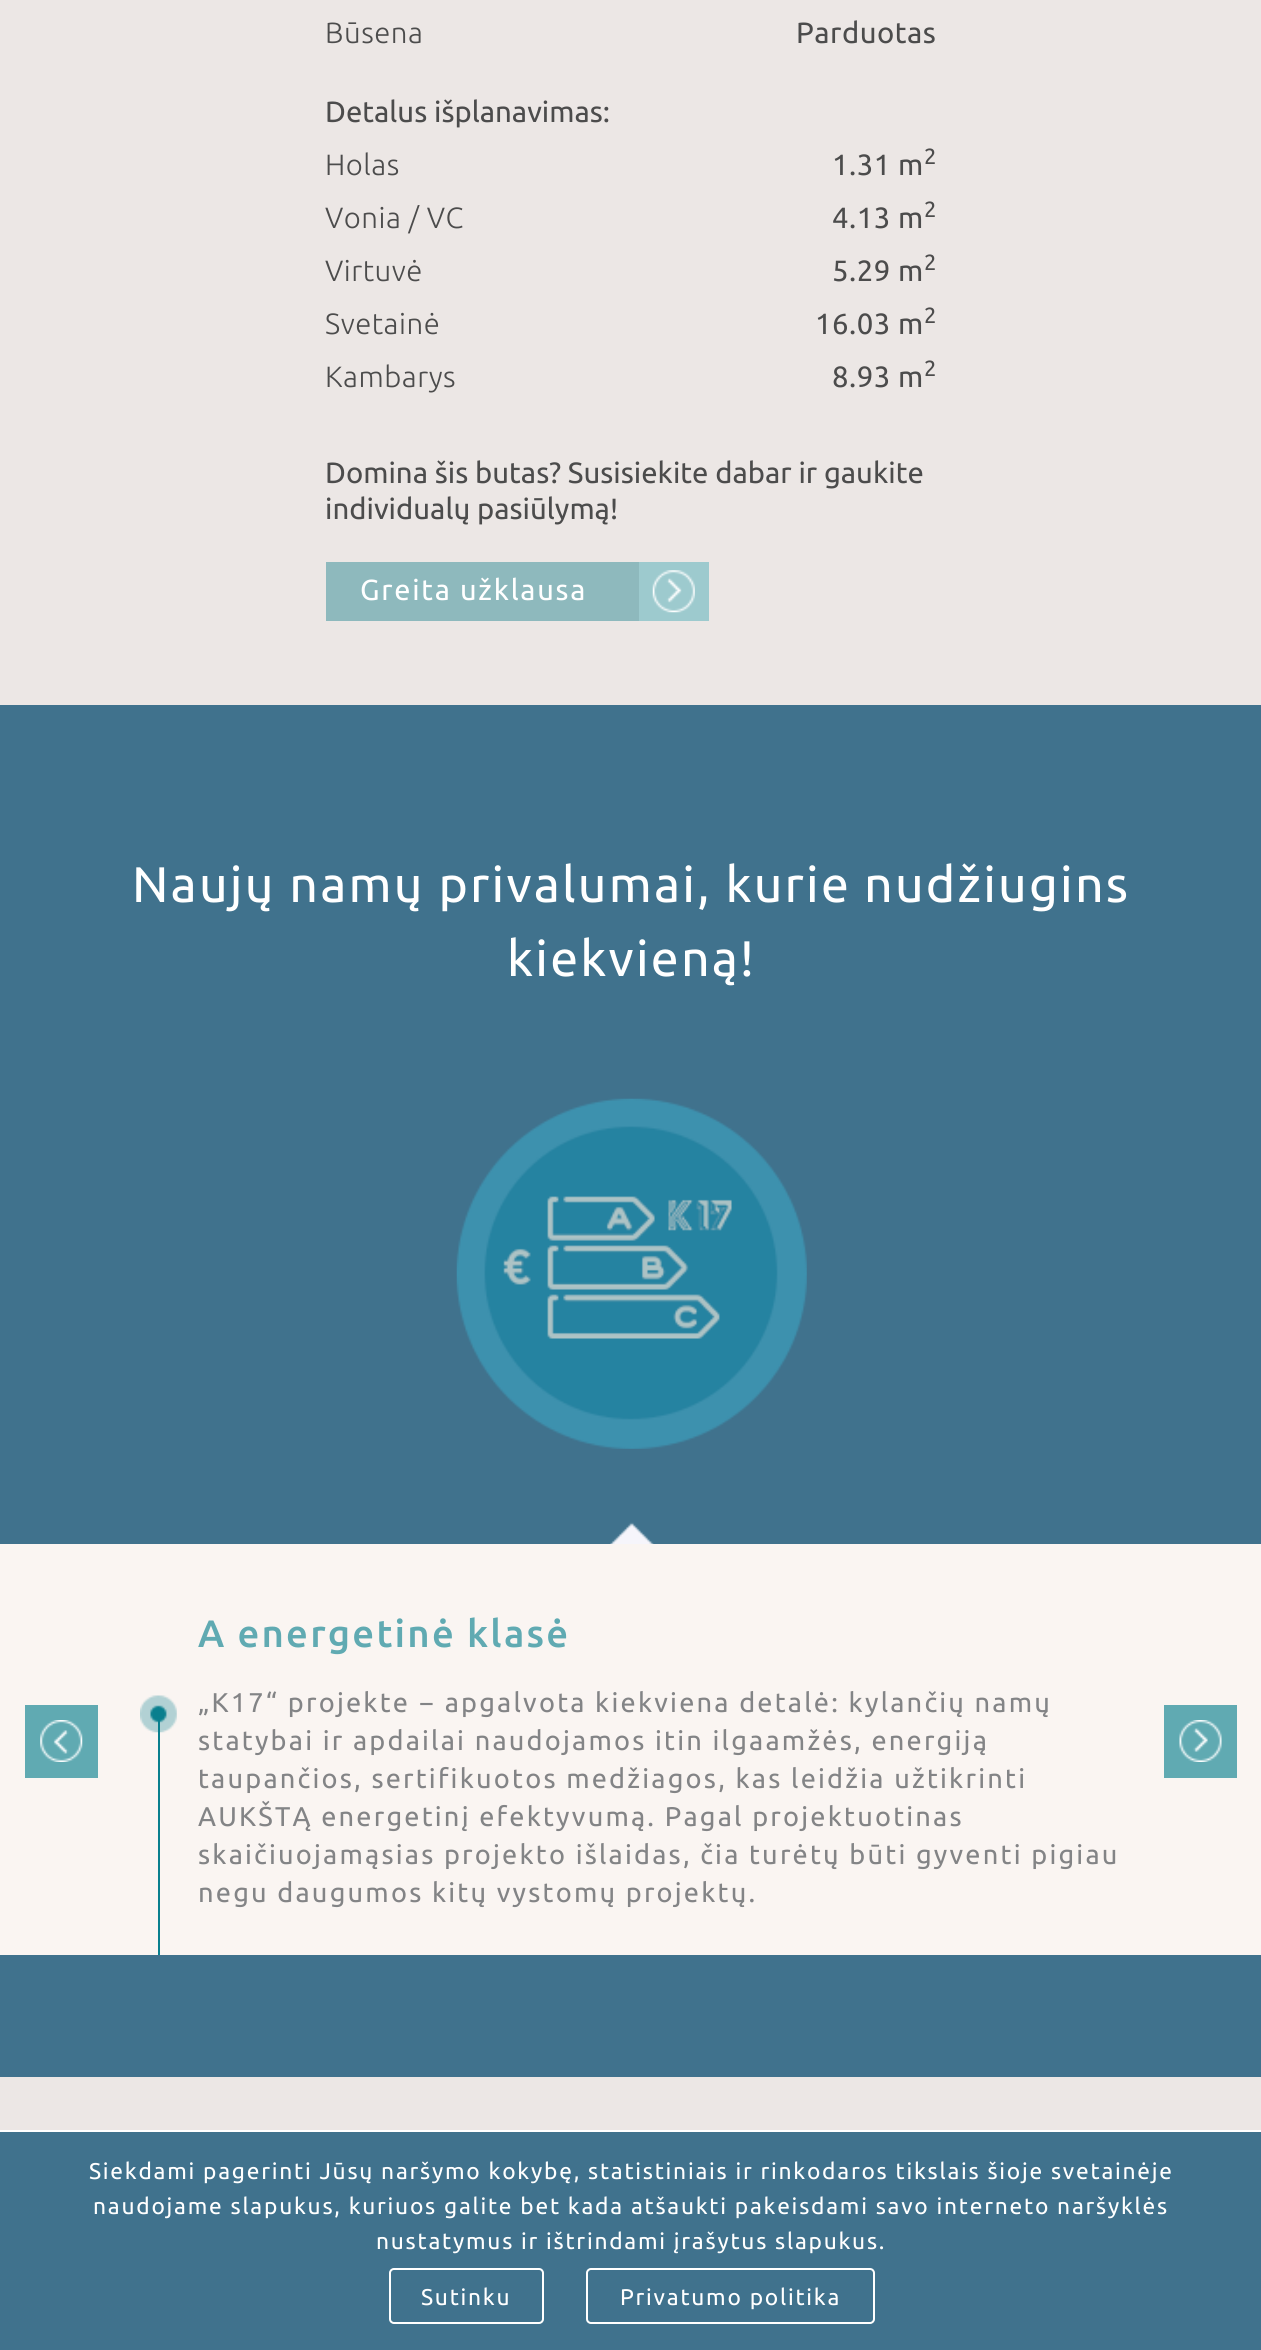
#include <cairo.h>
#include <math.h>
#include <stddef.h>

typedef struct { double x, y; const char *s; } line_t;

static void ink(cairo_t *ctx, unsigned color) {
    cairo_set_source_rgb(ctx, (color >> 16) / 255.0, (color >> 8 & 255) / 255.0, (color & 255) / 255.0);
}

static void write_spaced(cairo_t *ctx, double x, double y, const char *s, double letter, double word) {
    cairo_move_to(ctx, x, y);
    while (*s) {
        char ch[5] = {0};
        int n = 0;
        do ch[n++] = *s++; while ((*s & 0xC0) == 0x80);
        cairo_show_text(ctx, ch);
        cairo_rel_move_to(ctx, letter + word * (*ch == ' '), 0);
    }
}

static void round_path(cairo_t *ctx, double x, double y, double w, double h, double r) {
    cairo_new_sub_path(ctx);
    cairo_arc(ctx, x + w - r, y + h - r, r, 0, M_PI / 2);
    cairo_arc(ctx, x + r, y + h - r, r, M_PI / 2, M_PI);
    cairo_arc(ctx, x + r, y + r, r, M_PI, 1.5 * M_PI);
    cairo_arc(ctx, x + w - r, y + r, r, 1.5 * M_PI, 2 * M_PI);
    cairo_close_path(ctx);
}

static void paste(cairo_t *ctx, const char *path, double x, double y, double w, double h) {
    cairo_surface_t *image = cairo_image_surface_create_from_png(path);
    cairo_save(ctx);
    cairo_set_source_surface(ctx, image, x, y);
    cairo_rectangle(ctx, x, y, w, h);
    cairo_fill(ctx);
    cairo_restore(ctx);
    cairo_surface_destroy(image);
}

int main(void) {
    cairo_surface_t *surface = cairo_image_surface_create(CAIRO_FORMAT_RGB24, 1261, 2350);
    cairo_t *ctx = cairo_create(surface);
    cairo_font_options_t *options = cairo_font_options_create();
    cairo_font_options_set_hint_metrics(options, CAIRO_HINT_METRICS_OFF);
    cairo_font_options_set_hint_style(options, CAIRO_HINT_STYLE_NONE);
    cairo_set_font_options(ctx, options);
    cairo_set_miter_limit(ctx, 4);
    ink(ctx, 0xECE7E5);
    cairo_paint(ctx);
    cairo_select_font_face(ctx, "Ubuntu Light", CAIRO_FONT_SLANT_NORMAL, CAIRO_FONT_WEIGHT_NORMAL);
    cairo_set_font_size(ctx, 29.3);
    ink(ctx, 0x4C4C4C);
    write_spaced(ctx, 325, 43, "Būsena", 0.5, 0);
    cairo_select_font_face(ctx, "Ubuntu", CAIRO_FONT_SLANT_NORMAL, CAIRO_FONT_WEIGHT_NORMAL);
    write_spaced(ctx, 796, 43, "Parduotas", 0.5, 0);
    cairo_move_to(ctx, 325, 122);
    cairo_show_text(ctx, "Detalus išplanavimas:");
    cairo_select_font_face(ctx, "Ubuntu Light", CAIRO_FONT_SLANT_NORMAL, CAIRO_FONT_WEIGHT_NORMAL);
    write_spaced(ctx, 325, 175, "Holas", 0.5, 0);
    cairo_select_font_face(ctx, "Ubuntu", CAIRO_FONT_SLANT_NORMAL, CAIRO_FONT_WEIGHT_NORMAL);
    write_spaced(ctx, 832, 175, "1.31 m", 0.5, 0);
    cairo_set_font_size(ctx, 22);
    write_spaced(ctx, 924, 164, "2", 0.5, 0);
    cairo_select_font_face(ctx, "Ubuntu Light", CAIRO_FONT_SLANT_NORMAL, CAIRO_FONT_WEIGHT_NORMAL);
    cairo_set_font_size(ctx, 29.3);
    write_spaced(ctx, 325, 228, "Vonia / VC", 0.5, 0);
    cairo_select_font_face(ctx, "Ubuntu", CAIRO_FONT_SLANT_NORMAL, CAIRO_FONT_WEIGHT_NORMAL);
    write_spaced(ctx, 832, 228, "4.13 m", 0.5, 0);
    cairo_set_font_size(ctx, 22);
    write_spaced(ctx, 924, 217, "2", 0.5, 0);
    cairo_select_font_face(ctx, "Ubuntu Light", CAIRO_FONT_SLANT_NORMAL, CAIRO_FONT_WEIGHT_NORMAL);
    cairo_set_font_size(ctx, 29.3);
    write_spaced(ctx, 325, 281, "Virtuvė", 0.5, 0);
    cairo_select_font_face(ctx, "Ubuntu", CAIRO_FONT_SLANT_NORMAL, CAIRO_FONT_WEIGHT_NORMAL);
    write_spaced(ctx, 832, 281, "5.29 m", 0.5, 0);
    cairo_set_font_size(ctx, 22);
    write_spaced(ctx, 924, 270, "2", 0.5, 0);
    cairo_select_font_face(ctx, "Ubuntu Light", CAIRO_FONT_SLANT_NORMAL, CAIRO_FONT_WEIGHT_NORMAL);
    cairo_set_font_size(ctx, 29.3);
    write_spaced(ctx, 325, 334, "Svetainė", 0.5, 0);
    cairo_select_font_face(ctx, "Ubuntu", CAIRO_FONT_SLANT_NORMAL, CAIRO_FONT_WEIGHT_NORMAL);
    write_spaced(ctx, 815, 334, "16.03 m", 0.5, 0);
    cairo_set_font_size(ctx, 22);
    write_spaced(ctx, 924, 323, "2", 0.5, 0);
    cairo_select_font_face(ctx, "Ubuntu Light", CAIRO_FONT_SLANT_NORMAL, CAIRO_FONT_WEIGHT_NORMAL);
    cairo_set_font_size(ctx, 29.3);
    write_spaced(ctx, 325, 387, "Kambarys", 0.5, 0);
    cairo_select_font_face(ctx, "Ubuntu", CAIRO_FONT_SLANT_NORMAL, CAIRO_FONT_WEIGHT_NORMAL);
    write_spaced(ctx, 832, 387, "8.93 m", 0.5, 0);
    cairo_set_font_size(ctx, 22);
    write_spaced(ctx, 924, 376, "2", 0.5, 0);
    cairo_set_font_size(ctx, 29.3);
    cairo_move_to(ctx, 325, 483);
    cairo_show_text(ctx, "Domina šis butas? Susisiekite dabar ir gaukite");
    cairo_move_to(ctx, 325, 519);
    cairo_show_text(ctx, "individualų pasiūlymą!");
    ink(ctx, 0x8EB9BD);
    cairo_rectangle(ctx, 326, 562, 313, 59);
    cairo_fill(ctx);
    cairo_set_font_size(ctx, 29);
    ink(ctx, 0xFFFFFF);
    write_spaced(ctx, 360, 600, "Greita užklausa", 1.75, 0);
    ink(ctx, 0x9DCACE);
    cairo_rectangle(ctx, 639, 562, 70, 59);
    cairo_fill(ctx);
    paste(ctx, "media/1.png", 652, 570, 43, 43);
    ink(ctx, 0x40728D);
    cairo_rectangle(ctx, 0, 705, 1261, 1372);
    cairo_fill(ctx);
    cairo_set_font_size(ctx, 50);
    ink(ctx, 0xFFFFFF);
    {
        static const line_t items[] = {
            {132, 902, "Naujų namų privalumai, kurie"},
            {864, 902, "nudžiugins"},
            {507, 976, "kiekvieną!"},
        };
        for (size_t i = 0; i < sizeof items / sizeof *items; i++) {
            write_spaced(ctx, items[i].x, items[i].y, items[i].s, 2.2, 0);
        }
    }
    paste(ctx, "media/2.png", 456, 1098, 351, 351);
    ink(ctx, 0xFAF5F2);
    cairo_rectangle(ctx, 0, 1544, 1261, 411);
    cairo_fill(ctx);
    paste(ctx, "media/3.png", 140, 1695, 37, 38);
    ink(ctx, 0x097F8E);
    cairo_rectangle(ctx, 158, 1717, 2, 238);
    cairo_fill(ctx);
    paste(ctx, "media/4.png", 610, 1522, 44, 22);
    cairo_select_font_face(ctx, "Ubuntu Medium", CAIRO_FONT_SLANT_NORMAL, CAIRO_FONT_WEIGHT_NORMAL);
    cairo_set_font_size(ctx, 38.25);
    ink(ctx, 0x60AAB2);
    write_spaced(ctx, 198, 1647, "A energetinė klasė", 2.2, 0);
    cairo_select_font_face(ctx, "Ubuntu", CAIRO_FONT_SLANT_NORMAL, CAIRO_FONT_WEIGHT_NORMAL);
    cairo_set_font_size(ctx, 27.15);
    ink(ctx, 0x838486);
    {
        static const line_t items[] = {
            {198, 1712, "„K17“ projekte − apgalvota kiekviena detalė: kylančių namų"},
            {198, 1750, "statybai ir apdailai naudojamos itin ilgaamžės, energiją"},
            {198, 1788, "taupančios, sertifikuotos medžiagos, kas leidžia užtikrinti"},
            {198, 1826, "AUKŠTĄ energetinį efektyvumą. Pagal projektuotinas"},
            {198, 1864, "skaičiuojamąsias projekto išlaidas, čia turėtų būti gyventi pigiau"},
            {198, 1902, "negu daugumos kitų vystomų projektų."},
        };
        for (size_t i = 0; i < sizeof items / sizeof *items; i++) {
            write_spaced(ctx, items[i].x, items[i].y, items[i].s, 2.2, 0);
        }
    }
    ink(ctx, 0x60AAB2);
    cairo_rectangle(ctx, 25, 1705, 73, 73);
    cairo_fill(ctx);
    paste(ctx, "media/5.png", 40, 1720, 43, 42);
    cairo_rectangle(ctx, 1164, 1705, 73, 73);
    cairo_fill(ctx);
    paste(ctx, "media/6.png", 1179, 1720, 43, 42);
    ink(ctx, 0x40728D);
    cairo_rectangle(ctx, 0, 2132, 1261, 218);
    cairo_fill(ctx);
    ink(ctx, 0xFFFFFF);
    cairo_rectangle(ctx, 0, 2130, 1261, 2);
    cairo_fill(ctx);
    cairo_set_font_size(ctx, 22.75);
    {
        static const line_t items[] = {
            {89, 2179, "Siekdami pagerinti Jūsų naršymo kokybę, statistiniais ir rinkodaros tikslais šioje svetainėje"},
            {93, 2214, "naudojame slapukus, kuriuos galite bet kada atšaukti pakeisdami savo interneto naršyklės"},
            {376, 2249, "nustatymus ir ištrindami įrašytus slapukus."},
        };
        for (size_t i = 0; i < sizeof items / sizeof *items; i++) {
            write_spaced(ctx, items[i].x, items[i].y, items[i].s, 1.75, 0);
        }
    }
    round_path(ctx, 390, 2269, 153, 54, 4);
    cairo_stroke(ctx);
    write_spaced(ctx, 421, 2305, "Sutinku", 1.75, 0);
    round_path(ctx, 587, 2269, 287, 54, 4);
    cairo_stroke(ctx);
    write_spaced(ctx, 620, 2305, "Privatumo politika", 1.75, 0);
    cairo_surface_write_to_png(surface, "image.png");
    cairo_font_options_destroy(options);
    cairo_destroy(ctx);
    cairo_surface_destroy(surface);
    return 0;
}
